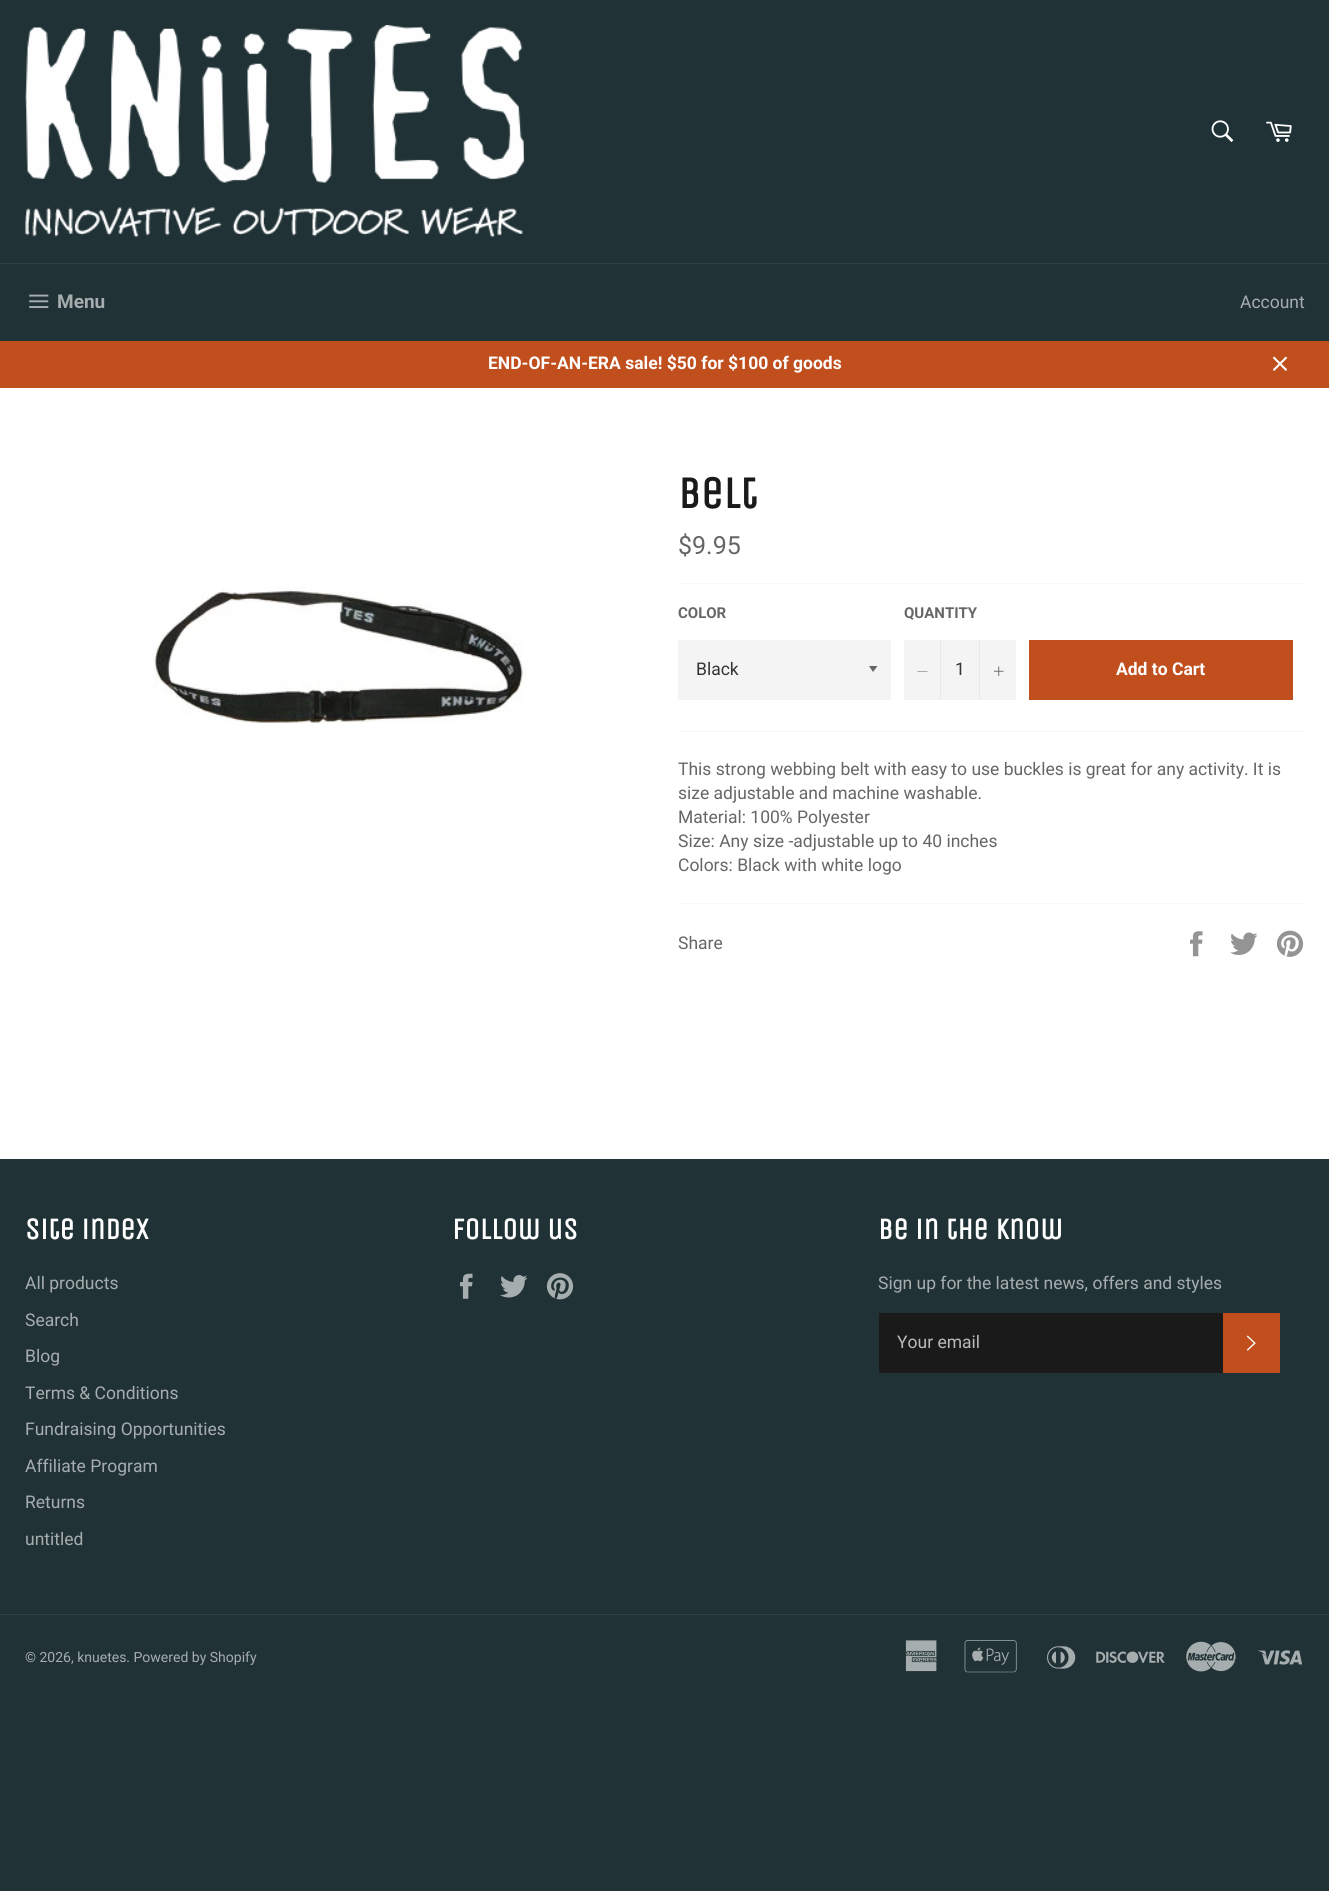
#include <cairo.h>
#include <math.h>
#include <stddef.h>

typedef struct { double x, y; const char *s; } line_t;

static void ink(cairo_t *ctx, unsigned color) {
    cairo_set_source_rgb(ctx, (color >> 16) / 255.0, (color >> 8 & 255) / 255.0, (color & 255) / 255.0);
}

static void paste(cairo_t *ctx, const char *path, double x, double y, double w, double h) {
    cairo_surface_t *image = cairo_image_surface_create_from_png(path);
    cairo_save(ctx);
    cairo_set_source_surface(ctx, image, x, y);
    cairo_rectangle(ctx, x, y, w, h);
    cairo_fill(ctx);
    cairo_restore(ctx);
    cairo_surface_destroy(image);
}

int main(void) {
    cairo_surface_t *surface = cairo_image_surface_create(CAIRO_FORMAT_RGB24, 1329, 1891);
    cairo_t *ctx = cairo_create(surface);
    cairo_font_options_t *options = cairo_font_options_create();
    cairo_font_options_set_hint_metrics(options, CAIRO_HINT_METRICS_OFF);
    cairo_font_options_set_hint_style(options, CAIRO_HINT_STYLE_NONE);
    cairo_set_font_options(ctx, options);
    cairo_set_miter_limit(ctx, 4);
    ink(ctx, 0x213236);
    cairo_paint(ctx);
    paste(ctx, "media/1.png", 25, 25, 500, 213);
    paste(ctx, "media/2.png", 1211, 120, 23, 22);
    paste(ctx, "media/3.png", 1266, 121, 26, 21);
    ink(ctx, 0x2B4146);
    cairo_rectangle(ctx, 0, 263, 1329, 1);
    cairo_fill(ctx);
    paste(ctx, "media/4.png", 29, 294, 20, 14);
    cairo_select_font_face(ctx, "Roboto", CAIRO_FONT_SLANT_NORMAL, CAIRO_FONT_WEIGHT_BOLD);
    cairo_set_font_size(ctx, 19);
    ink(ctx, 0xA6ADAF);
    cairo_move_to(ctx, 57, 308);
    cairo_show_text(ctx, "Menu");
    cairo_select_font_face(ctx, "Roboto", CAIRO_FONT_SLANT_NORMAL, CAIRO_FONT_WEIGHT_NORMAL);
    cairo_set_font_size(ctx, 17.5);
    cairo_move_to(ctx, 1240, 308);
    cairo_show_text(ctx, "Account");
    ink(ctx, 0xC04F1D);
    cairo_rectangle(ctx, 0, 341, 1329, 47);
    cairo_fill(ctx);
    cairo_select_font_face(ctx, "Roboto", CAIRO_FONT_SLANT_NORMAL, CAIRO_FONT_WEIGHT_BOLD);
    ink(ctx, 0xFFFFFF);
    cairo_move_to(ctx, 488, 369);
    cairo_show_text(ctx, "END-OF-AN-ERA sale! $50 for $100 of goods");
    paste(ctx, "media/5.png", 1272, 356, 16, 15);
    cairo_rectangle(ctx, 0, 388, 1329, 771);
    cairo_fill(ctx);
    paste(ctx, "media/6.png", 153, 587, 373, 137);
    cairo_select_font_face(ctx, "Unica One", CAIRO_FONT_SLANT_NORMAL, CAIRO_FONT_WEIGHT_BOLD);
    cairo_set_font_size(ctx, 45);
    ink(ctx, 0x1A1A1A);
    cairo_move_to(ctx, 678, 508);
    cairo_show_text(ctx, "Belt");
    cairo_select_font_face(ctx, "Roboto", CAIRO_FONT_SLANT_NORMAL, CAIRO_FONT_WEIGHT_NORMAL);
    cairo_set_font_size(ctx, 25);
    ink(ctx, 0x666666);
    cairo_move_to(ctx, 678, 554);
    cairo_show_text(ctx, "$9.95");
    ink(ctx, 0xF7F7F7);
    cairo_rectangle(ctx, 678, 583, 627, 1);
    cairo_fill(ctx);
    cairo_select_font_face(ctx, "Roboto", CAIRO_FONT_SLANT_NORMAL, CAIRO_FONT_WEIGHT_BOLD);
    cairo_set_font_size(ctx, 15);
    ink(ctx, 0x666666);
    cairo_move_to(ctx, 678, 618);
    cairo_show_text(ctx, "COLOR");
    ink(ctx, 0xF4F4F4);
    cairo_rectangle(ctx, 678, 640, 213, 60);
    cairo_fill(ctx);
    ink(ctx, 0x666666);
    cairo_new_path(ctx);
    cairo_move_to(ctx, 869, 666);
    cairo_line_to(ctx, 873, 672);
    cairo_line_to(ctx, 877.5, 666);
    cairo_close_path(ctx);
    cairo_fill(ctx);
    cairo_select_font_face(ctx, "Roboto", CAIRO_FONT_SLANT_NORMAL, CAIRO_FONT_WEIGHT_NORMAL);
    cairo_set_font_size(ctx, 17.5);
    ink(ctx, 0x333333);
    cairo_move_to(ctx, 696, 675);
    cairo_show_text(ctx, "Black");
    cairo_select_font_face(ctx, "Roboto", CAIRO_FONT_SLANT_NORMAL, CAIRO_FONT_WEIGHT_BOLD);
    cairo_set_font_size(ctx, 15);
    ink(ctx, 0x666666);
    cairo_move_to(ctx, 904, 618);
    cairo_show_text(ctx, "QUANTITY");
    ink(ctx, 0xF4F4F4);
    cairo_rectangle(ctx, 904, 640, 112, 60);
    cairo_fill(ctx);
    ink(ctx, 0xE7E7E7);
    cairo_rectangle(ctx, 940, 640, 1, 60);
    cairo_fill(ctx);
    ink(ctx, 0x666666);
    cairo_set_fill_rule(ctx, CAIRO_FILL_RULE_EVEN_ODD);
    cairo_new_path(ctx);
    cairo_move_to(ctx, 927.5, 671);
    cairo_line_to(ctx, 927.5, 671.5);
    cairo_line_to(ctx, 917.5, 671.5);
    cairo_line_to(ctx, 917.5, 671);
    cairo_close_path(ctx);
    cairo_fill(ctx);
    cairo_select_font_face(ctx, "Roboto", CAIRO_FONT_SLANT_NORMAL, CAIRO_FONT_WEIGHT_NORMAL);
    cairo_set_font_size(ctx, 17.5);
    ink(ctx, 0x333333);
    cairo_move_to(ctx, 955, 675);
    cairo_show_text(ctx, "1");
    ink(ctx, 0xE7E7E7);
    cairo_rectangle(ctx, 979, 640, 1, 60);
    cairo_fill(ctx);
    paste(ctx, "media/7.png", 994, 666, 10, 10);
    ink(ctx, 0xC04F1D);
    cairo_rectangle(ctx, 1029, 640, 264, 60);
    cairo_fill(ctx);
    cairo_select_font_face(ctx, "Roboto", CAIRO_FONT_SLANT_NORMAL, CAIRO_FONT_WEIGHT_BOLD);
    ink(ctx, 0xFFFFFF);
    cairo_move_to(ctx, 1116, 675);
    cairo_show_text(ctx, "Add to Cart");
    ink(ctx, 0xF7F7F7);
    cairo_rectangle(ctx, 678, 731, 627, 1);
    cairo_fill(ctx);
    cairo_select_font_face(ctx, "Roboto", CAIRO_FONT_SLANT_NORMAL, CAIRO_FONT_WEIGHT_NORMAL);
    ink(ctx, 0x666666);
    {
        static const line_t items[] = {
            {678, 775, "This strong webbing belt with easy to use buckles is great for any activity. It is"},
            {678, 799, "size adjustable and machine washable."},
            {678, 823, "Material: 100% Polyester"},
            {678, 847, "Size: Any size -adjustable up to 40 inches"},
            {678, 871, "Colors: Black with white logo"},
        };
        for (size_t i = 0; i < sizeof items / sizeof *items; i++) {
            cairo_move_to(ctx, items[i].x, items[i].y);
            cairo_show_text(ctx, items[i].s);
        }
    }
    ink(ctx, 0xF7F7F7);
    cairo_rectangle(ctx, 678, 903, 627, 1);
    cairo_fill(ctx);
    ink(ctx, 0x666666);
    cairo_move_to(ctx, 678, 949);
    cairo_show_text(ctx, "Share");
    paste(ctx, "media/8.png", 1190, 931, 13, 26);
    paste(ctx, "media/9.png", 1230, 932, 28, 23);
    paste(ctx, "media/10.png", 1276, 930, 28, 27);
    cairo_select_font_face(ctx, "Unica One", CAIRO_FONT_SLANT_NORMAL, CAIRO_FONT_WEIGHT_BOLD);
    cairo_set_font_size(ctx, 30);
    ink(ctx, 0xFFFFFF);
    cairo_move_to(ctx, 25, 1239);
    cairo_show_text(ctx, "Site index");
    cairo_select_font_face(ctx, "Roboto", CAIRO_FONT_SLANT_NORMAL, CAIRO_FONT_WEIGHT_NORMAL);
    cairo_set_font_size(ctx, 17.5);
    ink(ctx, 0xA6ADAF);
    {
        static const line_t items[] = {
            {25, 1289, "All products"},
            {25, 1326, "Search"},
            {25, 1362, "Blog"},
            {25, 1399, "Terms & Conditions"},
            {25, 1435, "Fundraising Opportunities"},
            {25, 1472, "Affiliate Program"},
            {25, 1508, "Returns"},
            {25, 1545, "untitled"},
        };
        for (size_t i = 0; i < sizeof items / sizeof *items; i++) {
            cairo_move_to(ctx, items[i].x, items[i].y);
            cairo_show_text(ctx, items[i].s);
        }
    }
    cairo_select_font_face(ctx, "Unica One", CAIRO_FONT_SLANT_NORMAL, CAIRO_FONT_WEIGHT_BOLD);
    cairo_set_font_size(ctx, 30);
    ink(ctx, 0xFFFFFF);
    cairo_move_to(ctx, 452, 1239);
    cairo_show_text(ctx, "Follow us");
    paste(ctx, "media/11.png", 460, 1273, 13, 26);
    paste(ctx, "media/12.png", 500, 1275, 28, 23);
    paste(ctx, "media/13.png", 546, 1273, 28, 27);
    cairo_move_to(ctx, 878, 1239);
    cairo_show_text(ctx, "Be in the know");
    cairo_select_font_face(ctx, "Roboto", CAIRO_FONT_SLANT_NORMAL, CAIRO_FONT_WEIGHT_NORMAL);
    cairo_set_font_size(ctx, 17.5);
    ink(ctx, 0xA6ADAF);
    cairo_move_to(ctx, 878, 1289);
    cairo_show_text(ctx, "Sign up for the latest news, offers and styles");
    ink(ctx, 0x1A1A1A);
    cairo_rectangle(ctx, 879, 1313, 344, 60);
    cairo_fill(ctx);
    ink(ctx, 0xBABABA);
    cairo_move_to(ctx, 897, 1348);
    cairo_show_text(ctx, "Your email");
    ink(ctx, 0xC04F1D);
    cairo_rectangle(ctx, 1223, 1313, 57, 60);
    cairo_fill(ctx);
    paste(ctx, "media/14.png", 1246, 1335, 10, 16);
    ink(ctx, 0x2B4146);
    cairo_rectangle(ctx, 0, 1614, 1329, 1);
    cairo_fill(ctx);
    cairo_set_font_size(ctx, 14);
    ink(ctx, 0xA6ADAF);
    cairo_move_to(ctx, 25, 1662);
    cairo_show_text(ctx, "© 2026, knuetes. Powered by Shopify");
    paste(ctx, "media/15.png", 905, 1640, 32, 32);
    paste(ctx, "media/16.png", 964, 1640, 53, 33);
    paste(ctx, "media/17.png", 1047, 1646, 29, 23);
    paste(ctx, "media/18.png", 1096, 1651, 69, 12);
    paste(ctx, "media/19.png", 1186, 1641, 50, 31);
    paste(ctx, "media/20.png", 1258, 1650, 44, 15);
    cairo_surface_write_to_png(surface, "image.png");
    cairo_font_options_destroy(options);
    cairo_destroy(ctx);
    cairo_surface_destroy(surface);
    return 0;
}
